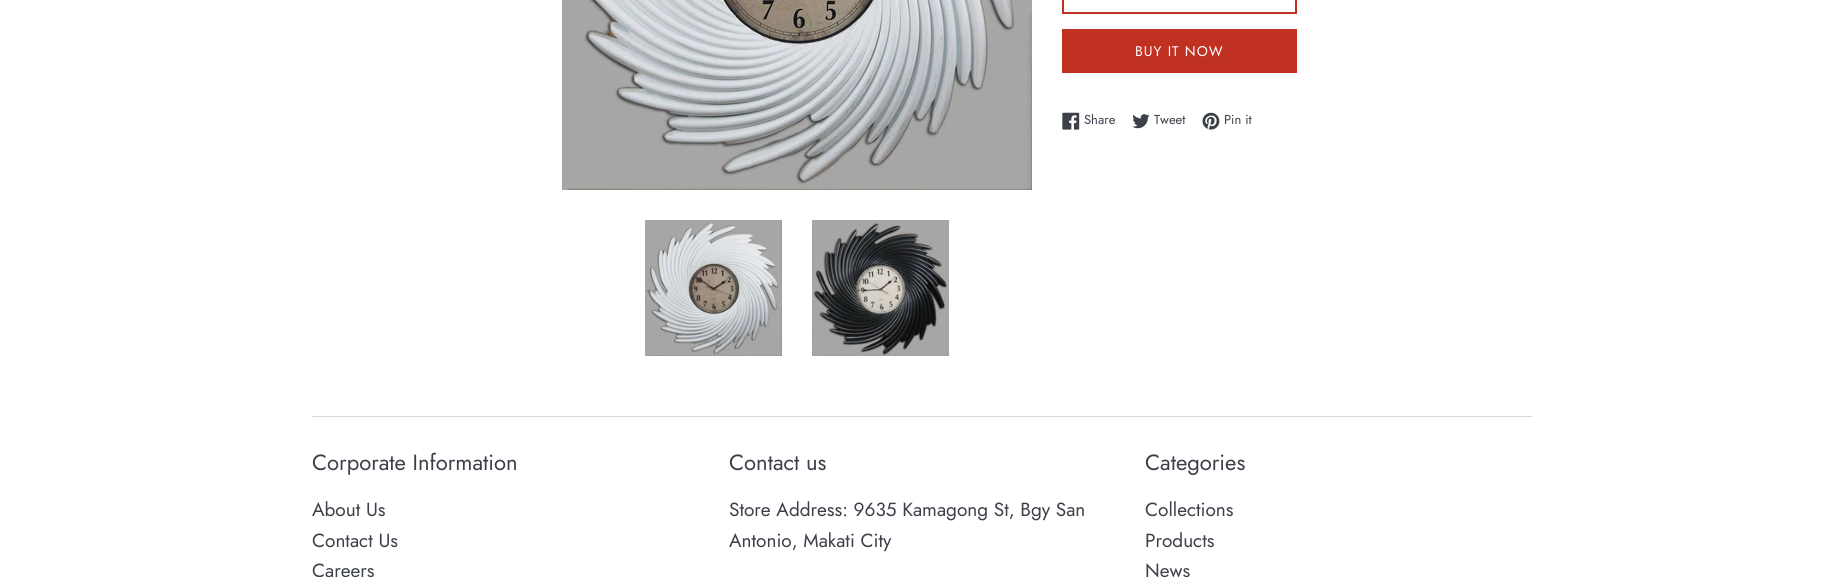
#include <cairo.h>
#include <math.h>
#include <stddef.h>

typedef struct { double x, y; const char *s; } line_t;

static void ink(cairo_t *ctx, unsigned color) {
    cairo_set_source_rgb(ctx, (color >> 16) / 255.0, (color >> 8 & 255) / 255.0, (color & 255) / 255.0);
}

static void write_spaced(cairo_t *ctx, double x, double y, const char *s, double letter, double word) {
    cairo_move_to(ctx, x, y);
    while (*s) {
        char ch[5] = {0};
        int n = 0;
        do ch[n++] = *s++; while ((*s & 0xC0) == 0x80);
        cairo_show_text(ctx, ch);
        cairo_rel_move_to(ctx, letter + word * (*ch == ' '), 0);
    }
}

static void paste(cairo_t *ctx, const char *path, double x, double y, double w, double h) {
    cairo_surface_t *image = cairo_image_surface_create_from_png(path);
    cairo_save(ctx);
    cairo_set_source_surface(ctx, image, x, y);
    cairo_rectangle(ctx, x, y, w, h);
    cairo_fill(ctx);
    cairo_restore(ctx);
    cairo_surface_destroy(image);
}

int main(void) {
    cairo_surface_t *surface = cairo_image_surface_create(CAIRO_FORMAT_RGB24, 1844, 577);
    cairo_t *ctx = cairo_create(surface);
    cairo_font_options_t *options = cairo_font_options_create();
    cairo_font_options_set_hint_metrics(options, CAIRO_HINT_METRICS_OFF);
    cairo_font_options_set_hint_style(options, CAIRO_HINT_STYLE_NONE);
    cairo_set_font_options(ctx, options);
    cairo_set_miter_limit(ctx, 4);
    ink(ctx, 0xFFFFFF);
    cairo_paint(ctx);
    paste(ctx, "media/1.png", 562, 0, 470, 190);
    paste(ctx, "media/2.png", 645, 220, 137, 136);
    paste(ctx, "media/3.png", 812, 220, 137, 136);
    cairo_rectangle(ctx, 1063, -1, 233, 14);
    ink(ctx, 0xC13121);
    cairo_stroke(ctx);
    cairo_rectangle(ctx, 1062, 29, 235, 44);
    cairo_fill(ctx);
    cairo_select_font_face(ctx, "Jost", CAIRO_FONT_SLANT_NORMAL, CAIRO_FONT_WEIGHT_NORMAL);
    cairo_set_font_size(ctx, 14);
    ink(ctx, 0xFFFFFF);
    write_spaced(ctx, 1135, 56, "BUY IT NOW", 1, 0);
    paste(ctx, "media/4.png", 1062, 112, 18, 18);
    cairo_set_font_size(ctx, 13);
    ink(ctx, 0x3C4049);
    cairo_move_to(ctx, 1084, 124);
    cairo_show_text(ctx, "Share");
    paste(ctx, "media/5.png", 1132, 114, 18, 15);
    cairo_move_to(ctx, 1154, 124);
    cairo_show_text(ctx, "Tweet");
    paste(ctx, "media/6.png", 1202, 112, 18, 18);
    cairo_move_to(ctx, 1224, 124);
    cairo_show_text(ctx, "Pin it");
    ink(ctx, 0xD7D8D2);
    cairo_rectangle(ctx, 312, 416, 1220, 1);
    cairo_fill(ctx);
    cairo_set_font_size(ctx, 22);
    ink(ctx, 0x3C4049);
    cairo_move_to(ctx, 312, 470);
    cairo_show_text(ctx, "Corporate Information");
    cairo_set_font_size(ctx, 19);
    {
        static const line_t items[] = {
            {312, 516, "About Us"},
            {312, 547, "Contact Us"},
            {312, 577, "Careers"},
        };
        for (size_t i = 0; i < sizeof items / sizeof *items; i++) {
            cairo_move_to(ctx, items[i].x, items[i].y);
            cairo_show_text(ctx, items[i].s);
        }
    }
    cairo_set_font_size(ctx, 22);
    cairo_move_to(ctx, 729, 470);
    cairo_show_text(ctx, "Contact us");
    cairo_set_font_size(ctx, 19);
    cairo_move_to(ctx, 729, 516);
    cairo_show_text(ctx, "Store Address: 9635 Kamagong St, Bgy San");
    cairo_move_to(ctx, 729, 547);
    cairo_show_text(ctx, "Antonio, Makati City");
    cairo_set_font_size(ctx, 22);
    cairo_move_to(ctx, 1145, 470);
    cairo_show_text(ctx, "Categories");
    cairo_set_font_size(ctx, 19);
    {
        static const line_t items[] = {
            {1145, 516, "Collections"},
            {1145, 547, "Products"},
            {1145, 577, "News"},
        };
        for (size_t i = 0; i < sizeof items / sizeof *items; i++) {
            cairo_move_to(ctx, items[i].x, items[i].y);
            cairo_show_text(ctx, items[i].s);
        }
    }
    cairo_surface_write_to_png(surface, "image.png");
    cairo_font_options_destroy(options);
    cairo_destroy(ctx);
    cairo_surface_destroy(surface);
    return 0;
}
